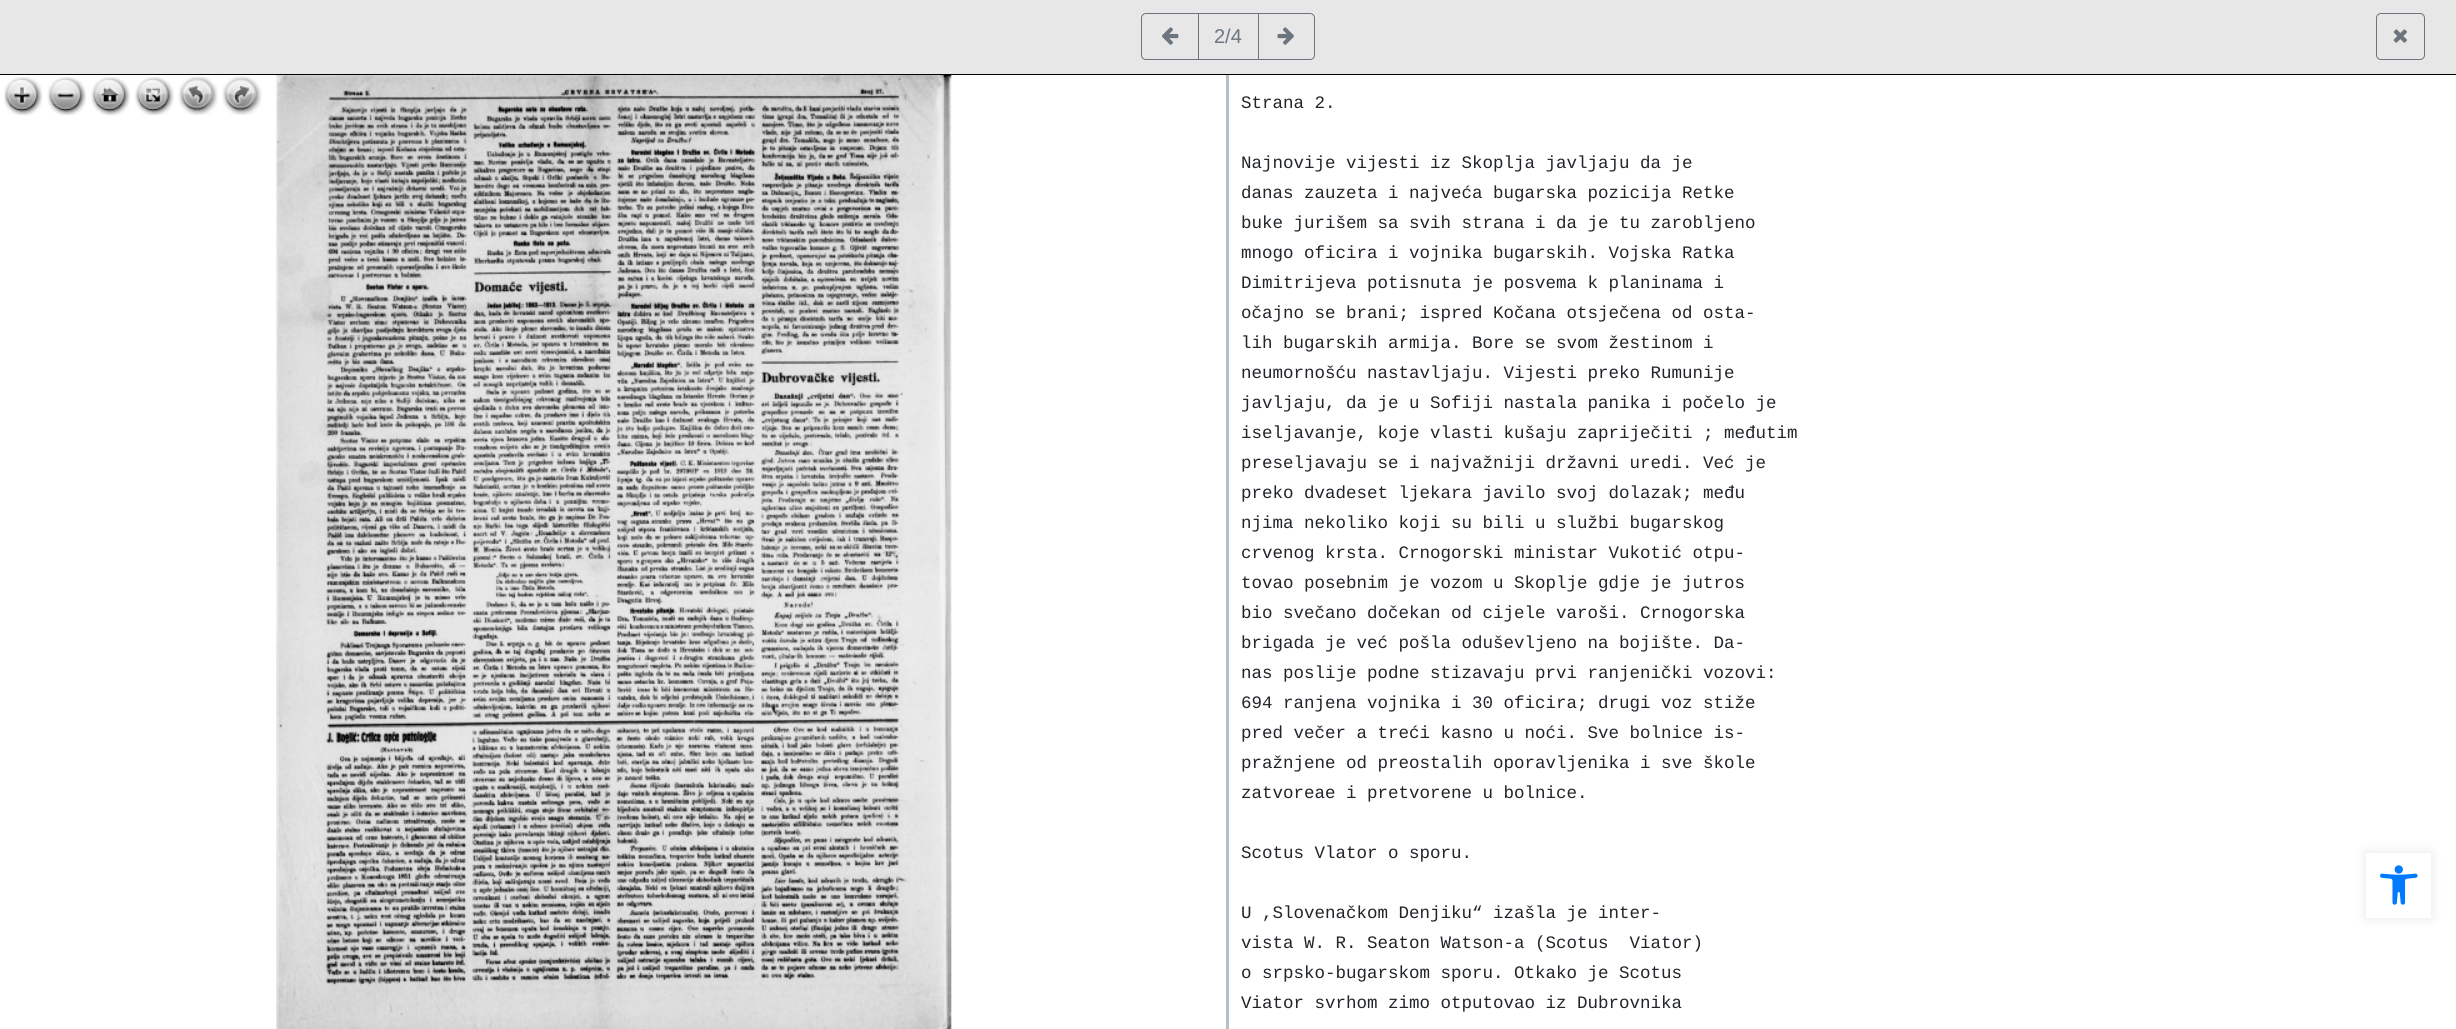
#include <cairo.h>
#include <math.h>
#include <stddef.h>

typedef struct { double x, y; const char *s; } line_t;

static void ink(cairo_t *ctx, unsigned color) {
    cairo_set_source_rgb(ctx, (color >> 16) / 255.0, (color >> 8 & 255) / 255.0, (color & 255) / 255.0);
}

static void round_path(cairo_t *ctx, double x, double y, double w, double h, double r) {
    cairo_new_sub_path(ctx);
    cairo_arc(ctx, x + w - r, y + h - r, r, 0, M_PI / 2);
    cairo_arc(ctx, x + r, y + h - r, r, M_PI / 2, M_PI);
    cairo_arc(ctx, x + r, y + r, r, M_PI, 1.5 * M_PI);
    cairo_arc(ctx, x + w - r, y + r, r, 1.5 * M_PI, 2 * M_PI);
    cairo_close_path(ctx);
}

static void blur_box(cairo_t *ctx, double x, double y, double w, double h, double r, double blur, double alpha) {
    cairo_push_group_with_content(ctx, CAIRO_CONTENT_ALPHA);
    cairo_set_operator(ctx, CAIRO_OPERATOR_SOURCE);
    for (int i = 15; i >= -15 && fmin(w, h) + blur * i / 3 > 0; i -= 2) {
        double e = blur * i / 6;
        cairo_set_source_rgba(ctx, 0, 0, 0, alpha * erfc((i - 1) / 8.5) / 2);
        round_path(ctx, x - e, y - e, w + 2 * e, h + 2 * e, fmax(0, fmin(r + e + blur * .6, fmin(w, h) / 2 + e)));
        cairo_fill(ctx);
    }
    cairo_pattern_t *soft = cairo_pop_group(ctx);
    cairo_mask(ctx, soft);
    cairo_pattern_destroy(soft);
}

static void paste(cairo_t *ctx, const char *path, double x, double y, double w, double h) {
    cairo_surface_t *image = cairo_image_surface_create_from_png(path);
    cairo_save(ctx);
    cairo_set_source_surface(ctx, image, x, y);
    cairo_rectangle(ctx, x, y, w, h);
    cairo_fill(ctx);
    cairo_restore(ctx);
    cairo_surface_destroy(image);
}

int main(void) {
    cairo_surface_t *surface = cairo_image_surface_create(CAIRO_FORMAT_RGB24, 2456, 1029);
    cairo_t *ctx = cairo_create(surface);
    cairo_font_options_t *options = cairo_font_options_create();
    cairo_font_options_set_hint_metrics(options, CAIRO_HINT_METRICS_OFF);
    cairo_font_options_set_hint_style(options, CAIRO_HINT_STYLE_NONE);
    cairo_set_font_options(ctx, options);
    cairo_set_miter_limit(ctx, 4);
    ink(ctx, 0xFFFFFF);
    cairo_paint(ctx);
    ink(ctx, 0xE7E7E7);
    cairo_rectangle(ctx, 0, 0, 2456, 74);
    cairo_fill(ctx);
    ink(ctx, 0x000000);
    cairo_rectangle(ctx, 0, 74, 2456, 1);
    cairo_fill(ctx);
    cairo_new_path(ctx);
    cairo_move_to(ctx, 1146, 13.5);
    cairo_line_to(ctx, 1198.5, 13.5);
    cairo_line_to(ctx, 1198.5, 59.5);
    cairo_line_to(ctx, 1146, 59.5);
    cairo_curve_to(ctx, 1143.5, 59.5, 1141.5, 57.5, 1141.5, 55);
    cairo_line_to(ctx, 1141.5, 18);
    cairo_curve_to(ctx, 1141.5, 15.5, 1143.5, 13.5, 1146, 13.5);
    cairo_close_path(ctx);
    ink(ctx, 0x6C757D);
    cairo_set_line_width(ctx, 1);
    cairo_stroke(ctx);
    paste(ctx, "media/1.png", 1162, 27, 17, 18);
    cairo_rectangle(ctx, 1198.5, 13.5, 60, 46);
    cairo_stroke(ctx);
    cairo_select_font_face(ctx, "Liberation Sans", CAIRO_FONT_SLANT_NORMAL, CAIRO_FONT_WEIGHT_NORMAL);
    cairo_set_font_size(ctx, 20);
    cairo_move_to(ctx, 1214, 43);
    cairo_show_text(ctx, "2/4");
    cairo_new_path(ctx);
    cairo_move_to(ctx, 1258.5, 13.5);
    cairo_line_to(ctx, 1310, 13.5);
    cairo_curve_to(ctx, 1312.5, 13.5, 1314.5, 15.5, 1314.5, 18);
    cairo_line_to(ctx, 1314.5, 55);
    cairo_curve_to(ctx, 1314.5, 57.5, 1312.5, 59.5, 1310, 59.5);
    cairo_line_to(ctx, 1258.5, 59.5);
    cairo_close_path(ctx);
    cairo_stroke(ctx);
    paste(ctx, "media/2.png", 1277, 27, 17, 18);
    round_path(ctx, 2376.5, 13.5, 48, 46, 4.5);
    cairo_stroke(ctx);
    paste(ctx, "media/3.png", 2393, 29, 14, 14);
    ink(ctx, 0xB7C0C8);
    cairo_rectangle(ctx, 1226, 75, 3, 954);
    cairo_fill(ctx);
    paste(ctx, "media/4.png", 4, 77, 39, 39);
    paste(ctx, "media/5.png", 4, 77, 38, 38);
    paste(ctx, "media/6.png", 47, 77, 39, 39);
    paste(ctx, "media/7.png", 48, 77, 38, 38);
    paste(ctx, "media/8.png", 91, 77, 39, 39);
    paste(ctx, "media/9.png", 91, 77, 39, 38);
    paste(ctx, "media/10.png", 135, 77, 39, 39);
    paste(ctx, "media/11.png", 135, 77, 39, 38);
    paste(ctx, "media/13.png", 179, 77, 38, 38);
    paste(ctx, "media/12.png", 178, 76, 40, 39);
    paste(ctx, "media/15.png", 223, 77, 38, 38);
    paste(ctx, "media/14.png", 222, 76, 40, 39);
    paste(ctx, "media/16.png", 276, 75, 676, 954);
    cairo_select_font_face(ctx, "Liberation Mono", CAIRO_FONT_SLANT_NORMAL, CAIRO_FONT_WEIGHT_NORMAL);
    cairo_set_font_size(ctx, 17.5);
    ink(ctx, 0x212529);
    {
        static const line_t items[] = {
            {1241, 108, "Strana 2."},
            {1241, 168, "Najnovije vijesti iz Skoplja javljaju da je"},
            {1241, 198, "danas zauzeta i najveća bugarska pozicija Retke"},
            {1241, 228, "buke jurišem sa svih strana i da je tu zarobljeno"},
            {1241, 258, "mnogo oficira i vojnika bugarskih. Vojska Ratka"},
            {1241, 288, "Dimitrijeva potisnuta je posvema k planinama i"},
            {1241, 318, "očajno se brani; ispred Kočana otsječena od osta-"},
            {1241, 348, "lih bugarskih armija. Bore se svom žestinom i"},
            {1241, 378, "neumornošću nastavljaju. Vijesti preko Rumunije"},
            {1241, 408, "javljaju, da je u Sofiji nastala panika i počelo je"},
            {1241, 438, "iseljavanje, koje vlasti kušaju zapriječiti ; međutim"},
            {1241, 468, "preseljavaju se i najvažniji državni uredi. Već je"},
            {1241, 498, "preko dvadeset ljekara javilo svoj dolazak; među"},
            {1241, 528, "njima nekoliko koji su bili u službi bugarskog"},
            {1241, 558, "crvenog krsta. Crnogorski ministar Vukotić otpu-"},
            {1241, 588, "tovao posebnim je vozom u Skoplje gdje je jutros"},
            {1241, 618, "bio svečano dočekan od cijele varoši. Crnogorska"},
            {1241, 648, "brigada je već pošla oduševljeno na bojište. Da-"},
            {1241, 678, "nas poslije podne stizavaju prvi ranjenički vozovi:"},
            {1241, 708, "694 ranjena vojnika i 30 oficira; drugi voz stiže"},
            {1241, 738, "pred večer a treći kasno u noći. Sve bolnice is-"},
            {1241, 768, "pražnjene od preostalih oporavljenika i sve škole"},
            {1241, 798, "zatvoreae i pretvorene u bolnice."},
            {1241, 858, "Scotus Vlator o sporu."},
            {1241, 918, "U ,Slovenačkom Denjiku“ izašla je inter-"},
            {1241, 948, "vista W. R. Seaton Watson-a (Scotus  Viator)"},
            {1241, 978, "o srpsko-bugarskom sporu. Otkako je Scotus"},
            {1241, 1008, "Viator svrhom zimo otputovao iz Dubrovnika"},
        };
        for (size_t i = 0; i < sizeof items / sizeof *items; i++) {
            cairo_move_to(ctx, items[i].x, items[i].y);
            cairo_show_text(ctx, items[i].s);
        }
    }
    ink(ctx, 0x000000);
    blur_box(ctx, 2366, 853, 65, 65, 0, 6, 0.1);
    ink(ctx, 0xFFFFFF);
    cairo_rectangle(ctx, 2366, 853, 65, 65);
    cairo_fill(ctx);
    paste(ctx, "media/17.png", 2380, 865, 38, 40);
    cairo_surface_write_to_png(surface, "image.png");
    cairo_font_options_destroy(options);
    cairo_destroy(ctx);
    cairo_surface_destroy(surface);
    return 0;
}
